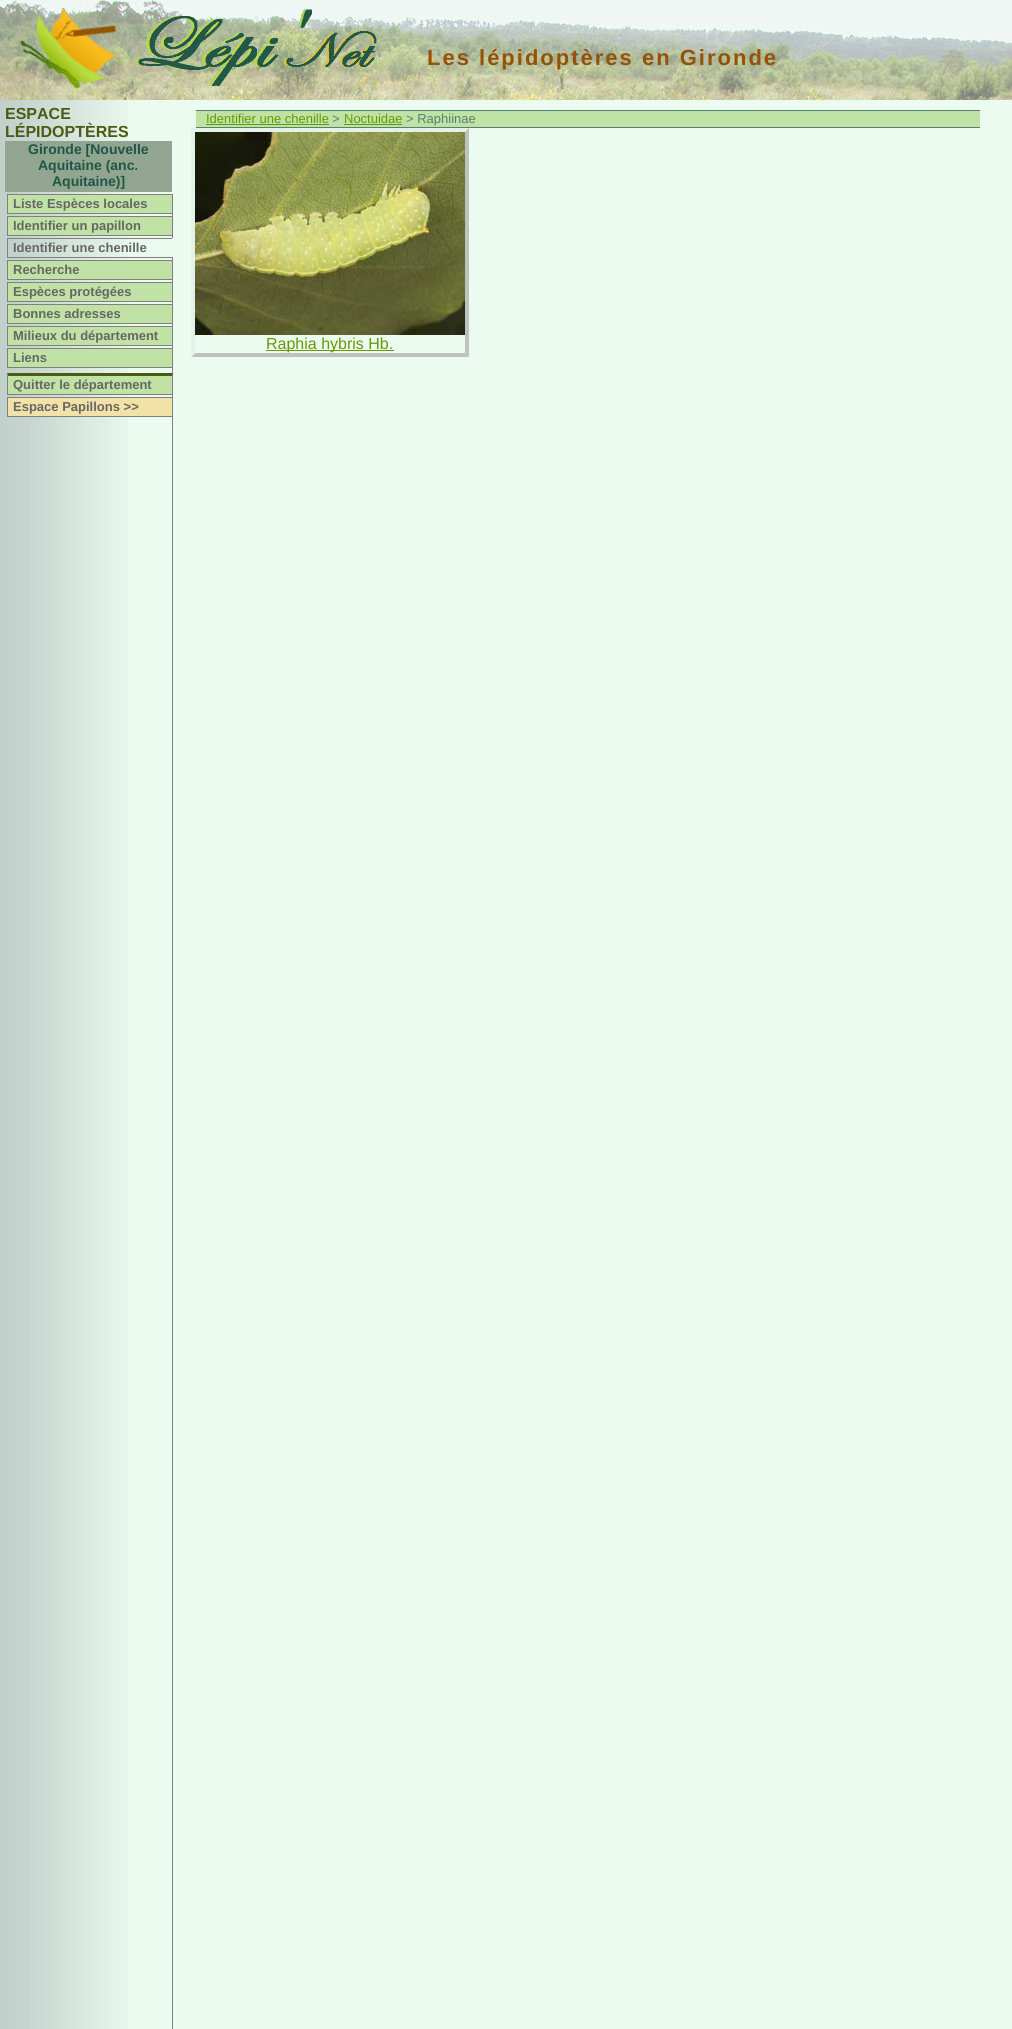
#include <cairo.h>
#include <math.h>
#include <stddef.h>

typedef struct { double x, y; const char *s; } line_t;
typedef struct { double x, y, w, h; unsigned color; } box_t;

static void ink(cairo_t *ctx, unsigned color) {
    cairo_set_source_rgb(ctx, (color >> 16) / 255.0, (color >> 8 & 255) / 255.0, (color & 255) / 255.0);
}

static void write_spaced(cairo_t *ctx, double x, double y, const char *s, double letter, double word) {
    cairo_move_to(ctx, x, y);
    while (*s) {
        char ch[5] = {0};
        int n = 0;
        do ch[n++] = *s++; while ((*s & 0xC0) == 0x80);
        cairo_show_text(ctx, ch);
        cairo_rel_move_to(ctx, letter + word * (*ch == ' '), 0);
    }
}

static void paste(cairo_t *ctx, const char *path, double x, double y, double w, double h) {
    cairo_surface_t *image = cairo_image_surface_create_from_png(path);
    cairo_save(ctx);
    cairo_set_source_surface(ctx, image, x, y);
    cairo_rectangle(ctx, x, y, w, h);
    cairo_fill(ctx);
    cairo_restore(ctx);
    cairo_surface_destroy(image);
}

int main(void) {
    cairo_surface_t *surface = cairo_image_surface_create(CAIRO_FORMAT_RGB24, 1012, 2029);
    cairo_t *ctx = cairo_create(surface);
    cairo_font_options_t *options = cairo_font_options_create();
    cairo_font_options_set_hint_metrics(options, CAIRO_HINT_METRICS_OFF);
    cairo_font_options_set_hint_style(options, CAIRO_HINT_STYLE_NONE);
    cairo_set_font_options(ctx, options);
    cairo_set_miter_limit(ctx, 4);
    ink(ctx, 0xEBFBF0);
    cairo_paint(ctx);
    paste(ctx, "media/1.png", 0, 0, 1012, 100);
    paste(ctx, "media/2.png", 20, 8, 96, 80);
    paste(ctx, "media/3.png", 136, 9, 241, 77);
    cairo_select_font_face(ctx, "Liberation Sans", CAIRO_FONT_SLANT_NORMAL, CAIRO_FONT_WEIGHT_BOLD);
    cairo_set_font_size(ctx, 22);
    ink(ctx, 0x955204);
    write_spaced(ctx, 427, 65, "Les lépidoptères en Gironde", 2, 0);
    paste(ctx, "media/4.png", 0, 100, 128, 1929);
    cairo_set_font_size(ctx, 16);
    ink(ctx, 0x4D5A12);
    cairo_move_to(ctx, 5, 119);
    cairo_show_text(ctx, "ESPACE");
    cairo_move_to(ctx, 5, 137);
    cairo_show_text(ctx, "LÉPIDOPTÈRES");
    ink(ctx, 0x92A591);
    cairo_rectangle(ctx, 5, 141, 167, 51);
    cairo_fill(ctx);
    cairo_set_font_size(ctx, 14);
    ink(ctx, 0x1F5647);
    {
        static const line_t items[] = {
            {28, 154, "Gironde [Nouvelle"},
            {38, 170, "Aquitaine (anc."},
            {52, 186, "Aquitaine)]"},
        };
        for (size_t i = 0; i < sizeof items / sizeof *items; i++) {
            cairo_move_to(ctx, items[i].x, items[i].y);
            cairo_show_text(ctx, items[i].s);
        }
    }
    ink(ctx, 0x808080);
    cairo_rectangle(ctx, 172, 214, 1, 1815);
    cairo_fill(ctx);
    ink(ctx, 0xC1E2A5);
    cairo_rectangle(ctx, 7.5, 194.5, 165, 19);
    cairo_fill_preserve(ctx);
    ink(ctx, 0x808080);
    cairo_set_line_width(ctx, 1);
    cairo_stroke(ctx);
    cairo_set_font_size(ctx, 13);
    ink(ctx, 0x666666);
    cairo_move_to(ctx, 13, 208);
    cairo_show_text(ctx, "Liste Espèces locales");
    ink(ctx, 0xC1E2A5);
    cairo_rectangle(ctx, 7.5, 216.5, 165, 19);
    cairo_fill_preserve(ctx);
    ink(ctx, 0x808080);
    cairo_stroke(ctx);
    ink(ctx, 0x666666);
    cairo_move_to(ctx, 13, 230);
    cairo_show_text(ctx, "Identifier un papillon");
    {
        static const box_t items[] = {
            {7, 238, 166, 1, 0x808080},
            {172, 238, 1, 20, 0xEBFBF0},
            {7, 257, 166, 1, 0x808080},
            {7, 238, 1, 20, 0x808080},
        };
        for (size_t i = 0; i < sizeof items / sizeof *items; i++) {
            ink(ctx, items[i].color);
            cairo_rectangle(ctx, items[i].x, items[i].y, items[i].w, items[i].h);
            cairo_fill(ctx);
        }
    }
    ink(ctx, 0x666666);
    cairo_move_to(ctx, 13, 252);
    cairo_show_text(ctx, "Identifier une chenille");
    ink(ctx, 0xC1E2A5);
    cairo_rectangle(ctx, 7.5, 260.5, 165, 19);
    cairo_fill_preserve(ctx);
    ink(ctx, 0x808080);
    cairo_stroke(ctx);
    ink(ctx, 0x666666);
    cairo_move_to(ctx, 13, 274);
    cairo_show_text(ctx, "Recherche");
    ink(ctx, 0xC1E2A5);
    cairo_rectangle(ctx, 7.5, 282.5, 165, 19);
    cairo_fill_preserve(ctx);
    ink(ctx, 0x808080);
    cairo_stroke(ctx);
    ink(ctx, 0x666666);
    cairo_move_to(ctx, 13, 296);
    cairo_show_text(ctx, "Espèces protégées");
    ink(ctx, 0xC1E2A5);
    cairo_rectangle(ctx, 7.5, 304.5, 165, 19);
    cairo_fill_preserve(ctx);
    ink(ctx, 0x808080);
    cairo_stroke(ctx);
    ink(ctx, 0x666666);
    cairo_move_to(ctx, 13, 318);
    cairo_show_text(ctx, "Bonnes adresses");
    ink(ctx, 0xC1E2A5);
    cairo_rectangle(ctx, 7.5, 326.5, 165, 19);
    cairo_fill_preserve(ctx);
    ink(ctx, 0x808080);
    cairo_stroke(ctx);
    ink(ctx, 0x666666);
    cairo_move_to(ctx, 13, 340);
    cairo_show_text(ctx, "Milieux du département");
    ink(ctx, 0xC1E2A5);
    cairo_rectangle(ctx, 7.5, 348.5, 165, 19);
    cairo_fill_preserve(ctx);
    ink(ctx, 0x808080);
    cairo_stroke(ctx);
    ink(ctx, 0x666666);
    cairo_move_to(ctx, 13, 362);
    cairo_show_text(ctx, "Liens");
    ink(ctx, 0xC1E2A5);
    cairo_rectangle(ctx, 8, 376, 164, 18);
    cairo_fill(ctx);
    ink(ctx, 0x4D5A12);
    cairo_new_path(ctx);
    cairo_move_to(ctx, 7, 373);
    cairo_line_to(ctx, 173, 373);
    cairo_line_to(ctx, 172, 376);
    cairo_line_to(ctx, 8, 376);
    cairo_close_path(ctx);
    cairo_fill(ctx);
    ink(ctx, 0x808080);
    cairo_new_path(ctx);
    cairo_move_to(ctx, 173, 373);
    cairo_line_to(ctx, 173, 395);
    cairo_line_to(ctx, 172, 394);
    cairo_line_to(ctx, 172, 376);
    cairo_close_path(ctx);
    cairo_fill(ctx);
    cairo_rectangle(ctx, 7, 394, 166, 1);
    cairo_fill(ctx);
    cairo_new_path(ctx);
    cairo_move_to(ctx, 7, 395);
    cairo_line_to(ctx, 7, 373);
    cairo_line_to(ctx, 8, 376);
    cairo_line_to(ctx, 8, 394);
    cairo_close_path(ctx);
    cairo_fill(ctx);
    ink(ctx, 0x666666);
    cairo_move_to(ctx, 13, 389);
    cairo_show_text(ctx, "Quitter le département");
    ink(ctx, 0xF3E2A7);
    cairo_rectangle(ctx, 7.5, 397.5, 165, 19);
    cairo_fill_preserve(ctx);
    ink(ctx, 0x808080);
    cairo_stroke(ctx);
    ink(ctx, 0x666666);
    cairo_move_to(ctx, 13, 411);
    cairo_show_text(ctx, "Espace Papillons >>");
    {
        static const box_t items[] = {
            {196, 111, 784, 16, 0xC1E2A5},
            {196, 110, 784, 1, 0x518274},
            {196, 127, 784, 1, 0x518274},
        };
        for (size_t i = 0; i < sizeof items / sizeof *items; i++) {
            ink(ctx, items[i].color);
            cairo_rectangle(ctx, items[i].x, items[i].y, items[i].w, items[i].h);
            cairo_fill(ctx);
        }
    }
    cairo_select_font_face(ctx, "Liberation Sans", CAIRO_FONT_SLANT_NORMAL, CAIRO_FONT_WEIGHT_NORMAL);
    ink(ctx, 0x669900);
    cairo_move_to(ctx, 206, 123);
    cairo_show_text(ctx, "Identifier une chenille");
    cairo_rectangle(ctx, 206, 124, 123, 1);
    cairo_fill(ctx);
    ink(ctx, 0x518274);
    cairo_move_to(ctx, 332, 123);
    cairo_show_text(ctx, ">");
    ink(ctx, 0x669900);
    cairo_move_to(ctx, 344, 123);
    cairo_show_text(ctx, "Noctuidae");
    cairo_rectangle(ctx, 344, 124, 58, 1);
    cairo_fill(ctx);
    ink(ctx, 0x518274);
    cairo_move_to(ctx, 406, 123);
    cairo_show_text(ctx, "> Raphiinae");
    ink(ctx, 0xE4F3E9);
    cairo_new_path(ctx);
    cairo_move_to(ctx, 191, 128);
    cairo_line_to(ctx, 469, 128);
    cairo_line_to(ctx, 465, 132);
    cairo_line_to(ctx, 195, 132);
    cairo_close_path(ctx);
    cairo_fill(ctx);
    ink(ctx, 0xC0C0C0);
    cairo_new_path(ctx);
    cairo_move_to(ctx, 469, 128);
    cairo_line_to(ctx, 469, 357);
    cairo_line_to(ctx, 465, 353);
    cairo_line_to(ctx, 465, 132);
    cairo_close_path(ctx);
    cairo_fill(ctx);
    cairo_new_path(ctx);
    cairo_move_to(ctx, 469, 357);
    cairo_line_to(ctx, 191, 357);
    cairo_line_to(ctx, 195, 353);
    cairo_line_to(ctx, 465, 353);
    cairo_close_path(ctx);
    cairo_fill(ctx);
    ink(ctx, 0xE4F3E9);
    cairo_new_path(ctx);
    cairo_move_to(ctx, 191, 357);
    cairo_line_to(ctx, 191, 128);
    cairo_line_to(ctx, 195, 132);
    cairo_line_to(ctx, 195, 353);
    cairo_close_path(ctx);
    cairo_fill(ctx);
    paste(ctx, "media/5.png", 195, 132, 270, 203);
    ink(ctx, 0x669900);
    cairo_rectangle(ctx, 266, 350, 128, 1);
    cairo_fill(ctx);
    cairo_set_font_size(ctx, 16);
    cairo_move_to(ctx, 266, 349);
    cairo_show_text(ctx, "Raphia hybris Hb.");
    cairo_surface_write_to_png(surface, "image.png");
    cairo_font_options_destroy(options);
    cairo_destroy(ctx);
    cairo_surface_destroy(surface);
    return 0;
}
